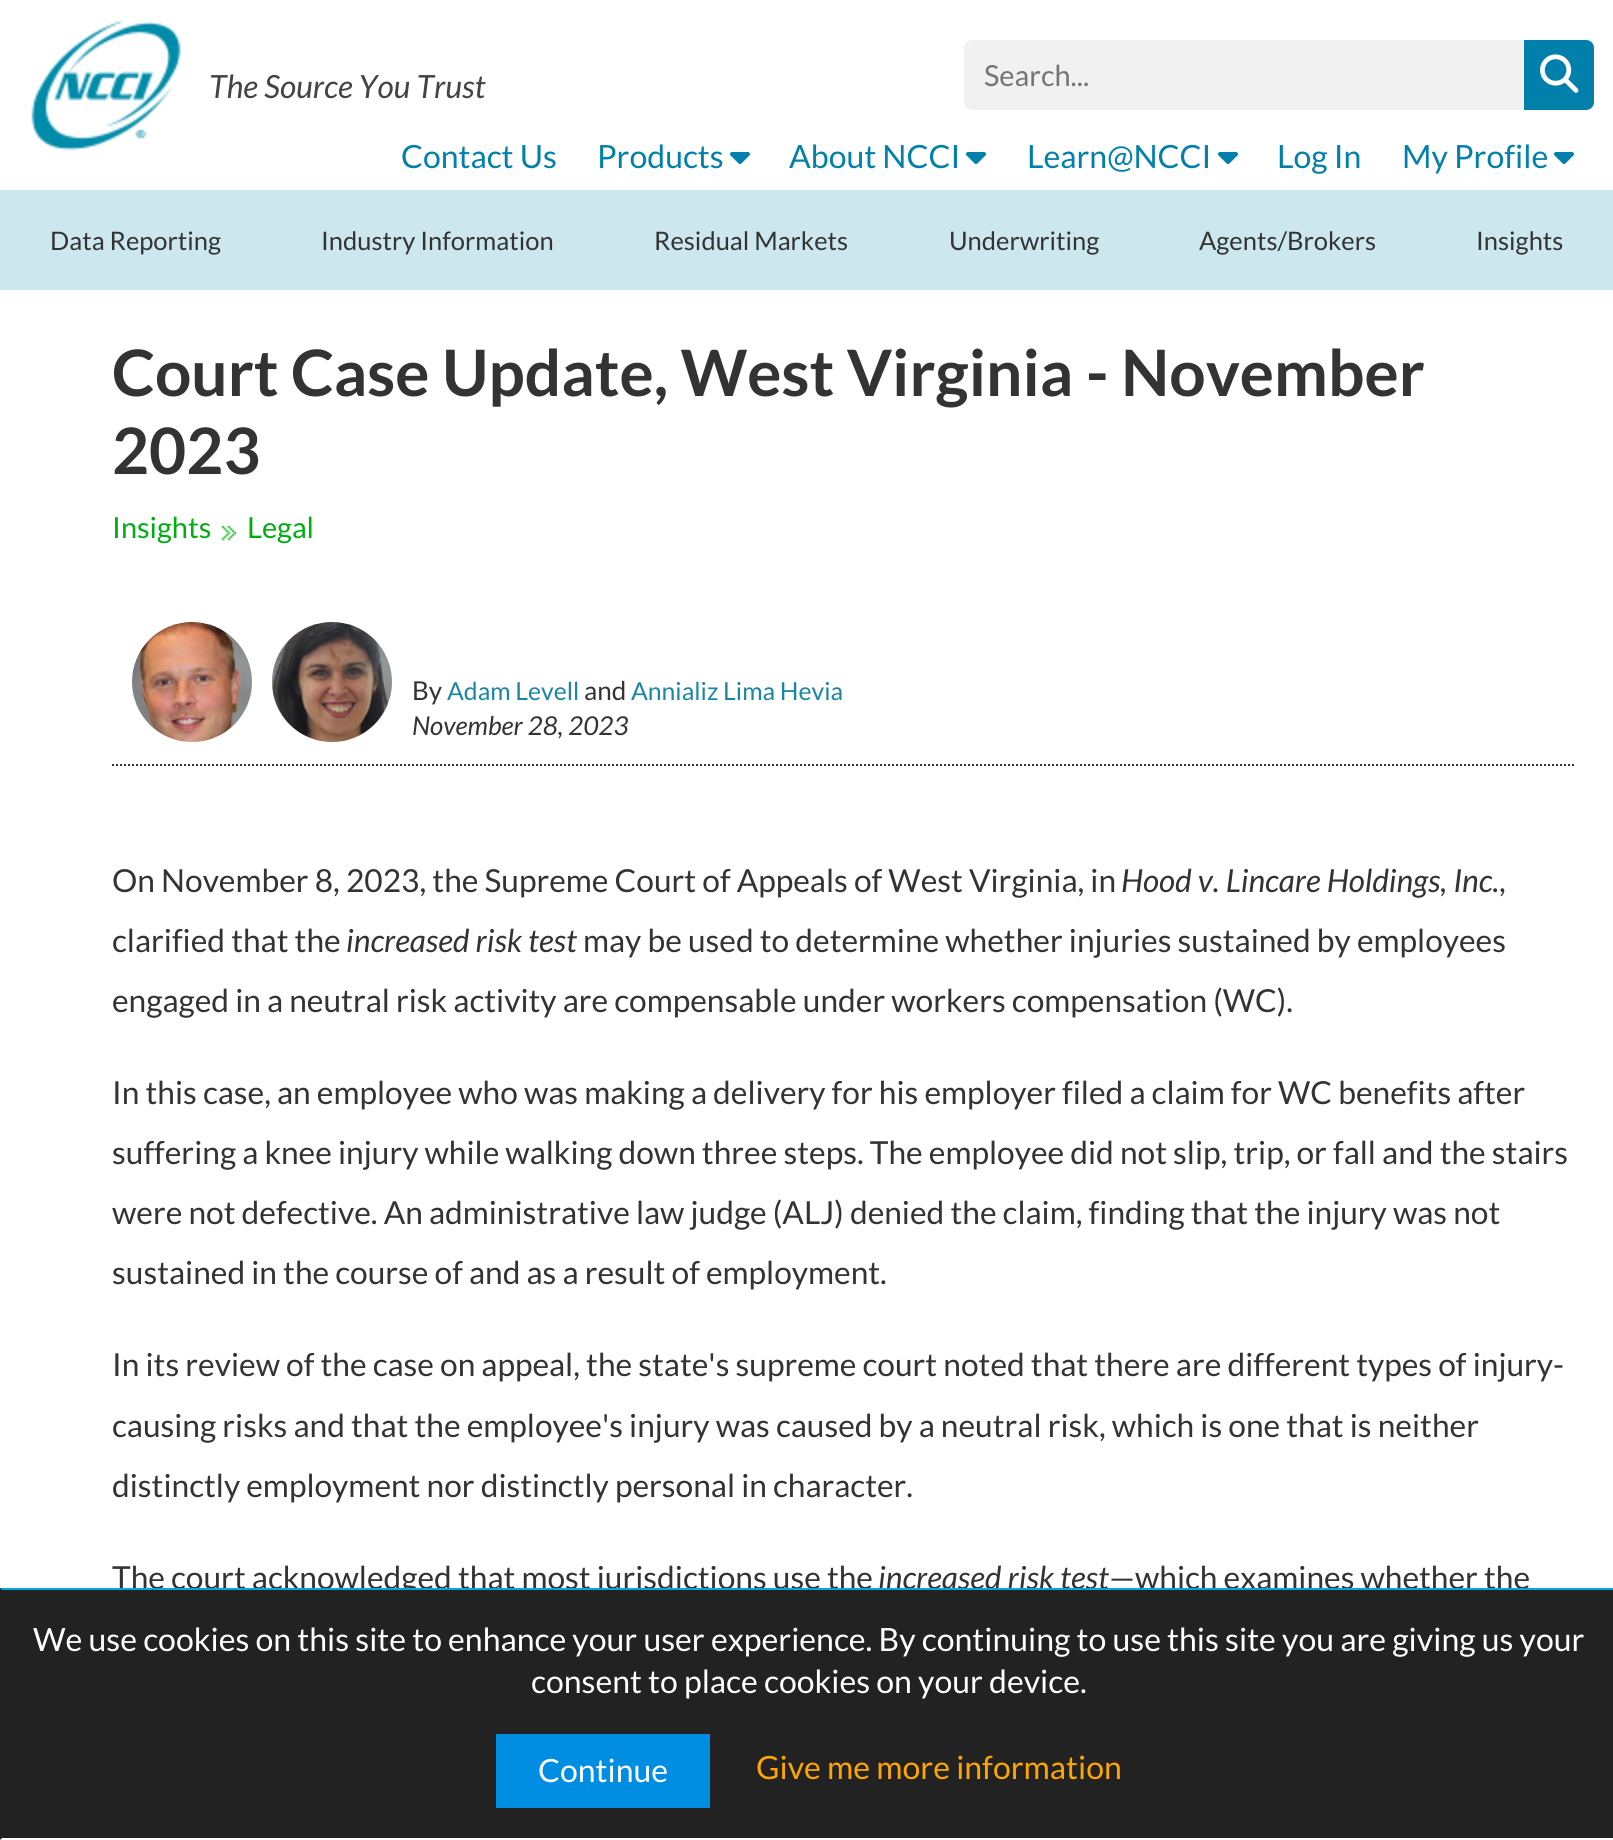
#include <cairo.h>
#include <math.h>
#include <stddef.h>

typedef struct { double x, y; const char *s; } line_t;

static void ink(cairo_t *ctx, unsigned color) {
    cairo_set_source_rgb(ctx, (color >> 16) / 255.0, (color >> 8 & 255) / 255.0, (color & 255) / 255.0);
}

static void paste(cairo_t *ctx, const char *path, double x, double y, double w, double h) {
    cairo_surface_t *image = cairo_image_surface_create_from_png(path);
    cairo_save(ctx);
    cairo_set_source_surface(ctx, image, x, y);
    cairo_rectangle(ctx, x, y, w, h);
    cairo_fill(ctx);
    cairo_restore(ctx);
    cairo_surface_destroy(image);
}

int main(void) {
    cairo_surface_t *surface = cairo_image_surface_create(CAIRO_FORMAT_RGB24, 1613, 1840);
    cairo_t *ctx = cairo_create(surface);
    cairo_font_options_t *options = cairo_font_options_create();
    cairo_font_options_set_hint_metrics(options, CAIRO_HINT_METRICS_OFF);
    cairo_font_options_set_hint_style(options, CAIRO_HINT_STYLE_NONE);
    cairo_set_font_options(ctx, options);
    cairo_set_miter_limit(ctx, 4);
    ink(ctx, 0xFFFFFF);
    cairo_paint(ctx);
    paste(ctx, "media/1.png", 31, 20, 150, 131);
    cairo_select_font_face(ctx, "Lato", CAIRO_FONT_SLANT_ITALIC, CAIRO_FONT_WEIGHT_NORMAL);
    cairo_set_font_size(ctx, 32);
    ink(ctx, 0x444444);
    cairo_move_to(ctx, 209, 98);
    cairo_show_text(ctx, "The Source You Trust");
    ink(ctx, 0xF1F1F1);
    cairo_new_path(ctx);
    cairo_move_to(ctx, 972, 40);
    cairo_line_to(ctx, 1524, 40);
    cairo_line_to(ctx, 1524, 110);
    cairo_line_to(ctx, 972, 110);
    cairo_curve_to(ctx, 967.5, 110, 964, 106.5, 964, 102);
    cairo_line_to(ctx, 964, 48);
    cairo_curve_to(ctx, 964, 43.5, 967.5, 40, 972, 40);
    cairo_close_path(ctx);
    cairo_fill(ctx);
    cairo_select_font_face(ctx, "Lato", CAIRO_FONT_SLANT_NORMAL, CAIRO_FONT_WEIGHT_NORMAL);
    cairo_set_font_size(ctx, 29);
    ink(ctx, 0x757575);
    cairo_move_to(ctx, 984, 86);
    cairo_show_text(ctx, "Search...");
    ink(ctx, 0x0180AB);
    cairo_new_path(ctx);
    cairo_move_to(ctx, 1524, 40);
    cairo_line_to(ctx, 1586, 40);
    cairo_curve_to(ctx, 1590.5, 40, 1594, 43.5, 1594, 48);
    cairo_line_to(ctx, 1594, 102);
    cairo_curve_to(ctx, 1594, 106.5, 1590.5, 110, 1586, 110);
    cairo_line_to(ctx, 1524, 110);
    cairo_close_path(ctx);
    cairo_fill(ctx);
    paste(ctx, "media/2.png", 1540, 54, 39, 39);
    cairo_set_font_size(ctx, 32);
    cairo_move_to(ctx, 401, 168);
    cairo_show_text(ctx, "Contact Us");
    cairo_move_to(ctx, 597, 168);
    cairo_show_text(ctx, "Products");
    paste(ctx, "media/3.png", 730, 152, 20, 12);
    cairo_move_to(ctx, 789, 168);
    cairo_show_text(ctx, "About NCCI");
    paste(ctx, "media/3.png", 966, 152, 20, 12);
    cairo_move_to(ctx, 1027, 168);
    cairo_show_text(ctx, "Learn@NCCI");
    paste(ctx, "media/3.png", 1218, 152, 20, 12);
    cairo_move_to(ctx, 1277, 168);
    cairo_show_text(ctx, "Log In");
    cairo_move_to(ctx, 1402, 168);
    cairo_show_text(ctx, "My Profile");
    paste(ctx, "media/3.png", 1554, 152, 20, 12);
    ink(ctx, 0xCCE7ED);
    cairo_rectangle(ctx, 0, 190, 1613, 100);
    cairo_fill(ctx);
    cairo_set_font_size(ctx, 25.5);
    ink(ctx, 0x333333);
    {
        static const line_t items[] = {
            {50, 250, "Data Reporting"},
            {321, 250, "Industry Information"},
            {654, 250, "Residual Markets"},
            {949, 250, "Underwriting"},
            {1199, 250, "Agents/Brokers"},
            {1476, 250, "Insights"},
        };
        for (size_t i = 0; i < sizeof items / sizeof *items; i++) {
            cairo_move_to(ctx, items[i].x, items[i].y);
            cairo_show_text(ctx, items[i].s);
        }
    }
    cairo_select_font_face(ctx, "Lato", CAIRO_FONT_SLANT_NORMAL, CAIRO_FONT_WEIGHT_BOLD);
    cairo_set_font_size(ctx, 64);
    cairo_move_to(ctx, 112, 396);
    cairo_show_text(ctx, "Court Case Update, West Virginia - November");
    cairo_move_to(ctx, 112, 474);
    cairo_show_text(ctx, "2023");
    cairo_select_font_face(ctx, "Lato", CAIRO_FONT_SLANT_NORMAL, CAIRO_FONT_WEIGHT_NORMAL);
    cairo_set_font_size(ctx, 29);
    ink(ctx, 0x00AE11);
    cairo_move_to(ctx, 112, 538);
    cairo_show_text(ctx, "Insights");
    paste(ctx, "media/4.png", 221, 526, 15, 15);
    cairo_move_to(ctx, 247, 538);
    cairo_show_text(ctx, "Legal");
    cairo_new_path(ctx);
    cairo_move_to(ctx, 112, 765);
    cairo_line_to(ctx, 1574, 765);
    ink(ctx, 0x333333);
    cairo_set_dash(ctx, (double[]){2, 2}, 2, 0);
    cairo_stroke(ctx);
    paste(ctx, "media/5.png", 132, 622, 120, 120);
    paste(ctx, "media/6.png", 272, 622, 120, 120);
    cairo_set_font_size(ctx, 26);
    cairo_move_to(ctx, 412, 700);
    cairo_show_text(ctx, "By");
    cairo_set_font_size(ctx, 24.75);
    ink(ctx, 0x1A86A3);
    cairo_move_to(ctx, 447, 700);
    cairo_show_text(ctx, "Adam Levell");
    cairo_set_font_size(ctx, 26);
    ink(ctx, 0x333333);
    cairo_move_to(ctx, 584, 700);
    cairo_show_text(ctx, "and");
    cairo_set_font_size(ctx, 24.75);
    ink(ctx, 0x1A86A3);
    cairo_move_to(ctx, 631, 700);
    cairo_show_text(ctx, "Annializ Lima Hevia");
    cairo_select_font_face(ctx, "Lato", CAIRO_FONT_SLANT_ITALIC, CAIRO_FONT_WEIGHT_NORMAL);
    cairo_set_font_size(ctx, 26);
    ink(ctx, 0x333333);
    cairo_move_to(ctx, 412, 735);
    cairo_show_text(ctx, "November 28, 2023");
    cairo_select_font_face(ctx, "Lato", CAIRO_FONT_SLANT_NORMAL, CAIRO_FONT_WEIGHT_NORMAL);
    cairo_set_font_size(ctx, 31.7);
    cairo_move_to(ctx, 112, 892);
    cairo_show_text(ctx, "On November 8, 2023, the Supreme Court of Appeals of West Virginia, in");
    cairo_select_font_face(ctx, "Lato", CAIRO_FONT_SLANT_ITALIC, CAIRO_FONT_WEIGHT_NORMAL);
    cairo_move_to(ctx, 1121, 892);
    cairo_show_text(ctx, "Hood v. Lincare Holdings, Inc.");
    cairo_select_font_face(ctx, "Lato", CAIRO_FONT_SLANT_NORMAL, CAIRO_FONT_WEIGHT_NORMAL);
    cairo_move_to(ctx, 1499, 892);
    cairo_show_text(ctx, ",");
    cairo_move_to(ctx, 112, 952);
    cairo_show_text(ctx, "clarified that the");
    cairo_select_font_face(ctx, "Lato", CAIRO_FONT_SLANT_ITALIC, CAIRO_FONT_WEIGHT_NORMAL);
    cairo_move_to(ctx, 346, 952);
    cairo_show_text(ctx, "increased risk test");
    cairo_select_font_face(ctx, "Lato", CAIRO_FONT_SLANT_NORMAL, CAIRO_FONT_WEIGHT_NORMAL);
    {
        static const line_t items[] = {
            {583, 952, "may be used to determine whether injuries sustained by employees"},
            {112, 1012, "engaged in a neutral risk activity are compensable under workers compensation (WC)."},
            {112, 1104, "In this case, an employee who was making a delivery for his employer filed a claim for WC benefits after"},
            {112, 1164, "suffering a knee injury while walking down three steps. The employee did not slip, trip, or fall and the stairs"},
            {112, 1224, "were not defective. An administrative law judge (ALJ) denied the claim, finding that the injury was not"},
            {112, 1284, "sustained in the course of and as a result of employment."},
            {112, 1376, "In its review of the case on appeal, the state's supreme court noted that there are different types of injury-"},
            {112, 1437, "causing risks and that the employee's injury was caused by a neutral risk, which is one that is neither"},
            {112, 1497, "distinctly employment nor distinctly personal in character."},
            {112, 1589, "The court acknowledged that most jurisdictions use the"},
        };
        for (size_t i = 0; i < sizeof items / sizeof *items; i++) {
            cairo_move_to(ctx, items[i].x, items[i].y);
            cairo_show_text(ctx, items[i].s);
        }
    }
    cairo_select_font_face(ctx, "Lato", CAIRO_FONT_SLANT_ITALIC, CAIRO_FONT_WEIGHT_NORMAL);
    cairo_move_to(ctx, 878, 1589);
    cairo_show_text(ctx, "increased risk test");
    cairo_select_font_face(ctx, "Lato", CAIRO_FONT_SLANT_NORMAL, CAIRO_FONT_WEIGHT_NORMAL);
    cairo_move_to(ctx, 1109, 1589);
    cairo_show_text(ctx, "—which examines whether the");
    ink(ctx, 0x222222);
    cairo_rectangle(ctx, 0, 1588, 1613, 252);
    cairo_fill(ctx);
    ink(ctx, 0x00A9E0);
    cairo_new_path(ctx);
    cairo_move_to(ctx, 0, 1588);
    cairo_line_to(ctx, 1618, 1588);
    cairo_line_to(ctx, 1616, 1590);
    cairo_line_to(ctx, 2, 1590);
    cairo_close_path(ctx);
    cairo_fill(ctx);
    ink(ctx, 0xFFFFFF);
    cairo_new_path(ctx);
    cairo_move_to(ctx, 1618, 1840);
    cairo_line_to(ctx, 0, 1840);
    cairo_line_to(ctx, 2, 1838);
    cairo_line_to(ctx, 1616, 1838);
    cairo_close_path(ctx);
    cairo_fill(ctx);
    cairo_set_font_size(ctx, 32);
    cairo_move_to(ctx, 33, 1651);
    cairo_show_text(ctx, "We use cookies on this site to enhance your user experience. By continuing to use this site you are giving us your");
    cairo_move_to(ctx, 531, 1693);
    cairo_show_text(ctx, "consent to place cookies on your device.");
    ink(ctx, 0x008EE3);
    cairo_rectangle(ctx, 496, 1734, 214, 74);
    cairo_fill(ctx);
    ink(ctx, 0xFFFFFF);
    cairo_move_to(ctx, 538, 1782);
    cairo_show_text(ctx, "Continue");
    ink(ctx, 0xFFA500);
    cairo_move_to(ctx, 756, 1779);
    cairo_show_text(ctx, "Give me more information");
    cairo_surface_write_to_png(surface, "image.png");
    cairo_font_options_destroy(options);
    cairo_destroy(ctx);
    cairo_surface_destroy(surface);
    return 0;
}
